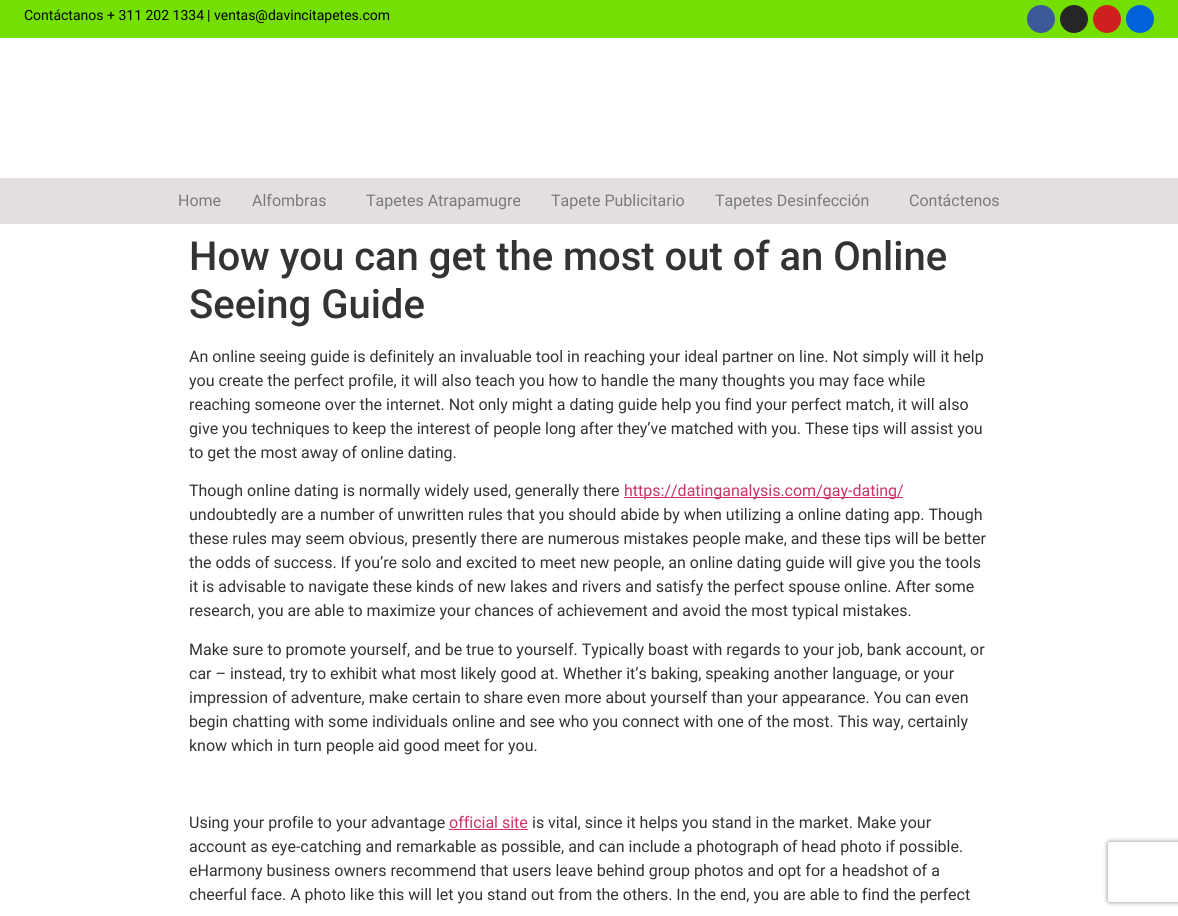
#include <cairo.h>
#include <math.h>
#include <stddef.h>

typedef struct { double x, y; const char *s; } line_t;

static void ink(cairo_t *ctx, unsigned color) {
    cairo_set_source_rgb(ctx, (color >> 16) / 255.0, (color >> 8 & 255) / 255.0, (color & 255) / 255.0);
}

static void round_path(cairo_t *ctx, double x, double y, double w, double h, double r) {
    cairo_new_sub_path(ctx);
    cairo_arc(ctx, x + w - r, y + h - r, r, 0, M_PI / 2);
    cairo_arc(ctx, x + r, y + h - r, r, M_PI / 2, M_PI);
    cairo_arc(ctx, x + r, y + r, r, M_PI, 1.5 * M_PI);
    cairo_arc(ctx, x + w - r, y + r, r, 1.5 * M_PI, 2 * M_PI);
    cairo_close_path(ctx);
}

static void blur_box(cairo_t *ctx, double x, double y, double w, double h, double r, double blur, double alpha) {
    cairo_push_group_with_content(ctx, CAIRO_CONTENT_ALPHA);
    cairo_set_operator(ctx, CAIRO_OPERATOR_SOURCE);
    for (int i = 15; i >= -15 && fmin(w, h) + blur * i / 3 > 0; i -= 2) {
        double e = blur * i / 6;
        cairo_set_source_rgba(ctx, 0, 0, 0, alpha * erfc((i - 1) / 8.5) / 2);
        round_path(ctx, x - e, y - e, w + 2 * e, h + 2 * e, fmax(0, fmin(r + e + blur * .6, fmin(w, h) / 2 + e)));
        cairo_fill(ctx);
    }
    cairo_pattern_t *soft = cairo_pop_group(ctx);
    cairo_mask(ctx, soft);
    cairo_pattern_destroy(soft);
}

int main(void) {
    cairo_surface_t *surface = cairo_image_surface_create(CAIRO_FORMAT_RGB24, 1178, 916);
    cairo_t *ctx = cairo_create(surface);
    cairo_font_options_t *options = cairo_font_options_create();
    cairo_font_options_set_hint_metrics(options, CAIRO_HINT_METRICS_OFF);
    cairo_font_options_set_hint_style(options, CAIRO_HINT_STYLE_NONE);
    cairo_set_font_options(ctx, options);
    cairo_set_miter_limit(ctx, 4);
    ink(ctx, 0xFFFFFF);
    cairo_paint(ctx);
    ink(ctx, 0x74DF00);
    cairo_rectangle(ctx, 0, 0, 1178, 38);
    cairo_fill(ctx);
    cairo_select_font_face(ctx, "Roboto", CAIRO_FONT_SLANT_NORMAL, CAIRO_FONT_WEIGHT_NORMAL);
    cairo_set_font_size(ctx, 14);
    ink(ctx, 0x070707);
    cairo_move_to(ctx, 24, 20);
    cairo_show_text(ctx, "Contáctanos");
    ink(ctx, 0x000000);
    cairo_move_to(ctx, 107, 20);
    cairo_show_text(ctx, "+ 311 202 1334");
    ink(ctx, 0x070707);
    cairo_move_to(ctx, 207, 20);
    cairo_show_text(ctx, "|");
    ink(ctx, 0x000000);
    cairo_move_to(ctx, 214, 20);
    cairo_show_text(ctx, "ventas@davincitapetes.com");
    ink(ctx, 0x3B5998);
    cairo_new_path(ctx);
    cairo_arc(ctx, 1041, 19, 14, 0, 2 * M_PI);
    cairo_fill(ctx);
    ink(ctx, 0x262626);
    cairo_arc(ctx, 1074, 19, 14, 0, 2 * M_PI);
    cairo_fill(ctx);
    ink(ctx, 0xCD201F);
    cairo_arc(ctx, 1107, 19, 14, 0, 2 * M_PI);
    cairo_fill(ctx);
    ink(ctx, 0x0063DC);
    cairo_arc(ctx, 1140, 19, 14, 0, 2 * M_PI);
    cairo_fill(ctx);
    ink(ctx, 0xE3DFDF);
    cairo_rectangle(ctx, 0, 178, 1178, 46);
    cairo_fill(ctx);
    cairo_set_font_size(ctx, 16);
    ink(ctx, 0x7A7A7A);
    {
        static const line_t items[] = {
            {178, 206, "Home"},
            {252, 206, "Alfombras"},
            {366, 206, "Tapetes Atrapamugre"},
            {551, 206, "Tapete Publicitario"},
            {715, 206, "Tapetes Desinfección"},
            {909, 206, "Contáctenos"},
        };
        for (size_t i = 0; i < sizeof items / sizeof *items; i++) {
            cairo_move_to(ctx, items[i].x, items[i].y);
            cairo_show_text(ctx, items[i].s);
        }
    }
    cairo_select_font_face(ctx, "Roboto Medium", CAIRO_FONT_SLANT_NORMAL, CAIRO_FONT_WEIGHT_NORMAL);
    cairo_set_font_size(ctx, 40);
    ink(ctx, 0x333333);
    cairo_move_to(ctx, 189, 270);
    cairo_show_text(ctx, "How you can get the most out of an Online");
    cairo_move_to(ctx, 189, 318);
    cairo_show_text(ctx, "Seeing Guide");
    cairo_select_font_face(ctx, "Roboto", CAIRO_FONT_SLANT_NORMAL, CAIRO_FONT_WEIGHT_NORMAL);
    cairo_set_font_size(ctx, 16);
    {
        static const line_t items[] = {
            {189, 362, "An online seeing guide is definitely an invaluable tool in reaching your ideal partner on line. Not simply will it help"},
            {189, 386, "you create the perfect profile, it will also teach you how to handle the many thoughts you may face while"},
            {189, 410, "reaching someone over the internet. Not only might a dating guide help you find your perfect match, it will also"},
            {189, 434, "give you techniques to keep the interest of people long after they’ve matched with you. These tips will assist you"},
            {189, 458, "to get the most away of online dating."},
            {189, 496, "Though online dating is normally widely used, generally there"},
        };
        for (size_t i = 0; i < sizeof items / sizeof *items; i++) {
            cairo_move_to(ctx, items[i].x, items[i].y);
            cairo_show_text(ctx, items[i].s);
        }
    }
    ink(ctx, 0xCC3366);
    cairo_rectangle(ctx, 624, 497, 279, 1);
    cairo_fill(ctx);
    cairo_move_to(ctx, 624, 496);
    cairo_show_text(ctx, "https://datinganalysis.com/gay-dating/");
    ink(ctx, 0x333333);
    {
        static const line_t items[] = {
            {189, 520, "undoubtedly are a number of unwritten rules that you should abide by when utilizing a online dating app. Though"},
            {189, 544, "these rules may seem obvious, presently there are numerous mistakes people make, and these tips will be better"},
            {189, 568, "the odds of success. If you’re solo and excited to meet new people, an online dating guide will give you the tools"},
            {189, 592, "it is advisable to navigate these kinds of new lakes and rivers and satisfy the perfect spouse online. After some"},
            {189, 616, "research, you are able to maximize your chances of achievement and avoid the most typical mistakes."},
            {189, 655, "Make sure to promote yourself, and be true to yourself. Typically boast with regards to your job, bank account, or"},
            {189, 679, "car – instead, try to exhibit what most likely good at. Whether it’s baking, speaking another language, or your"},
            {189, 703, "impression of adventure, make certain to share even more about yourself than your appearance. You can even"},
            {189, 727, "begin chatting with some individuals online and see who you connect with one of the most. This way, certainly"},
            {189, 751, "know which in turn people aid good meet for you."},
            {189, 828, "Using your profile to your advantage"},
        };
        for (size_t i = 0; i < sizeof items / sizeof *items; i++) {
            cairo_move_to(ctx, items[i].x, items[i].y);
            cairo_show_text(ctx, items[i].s);
        }
    }
    ink(ctx, 0xCC3366);
    cairo_move_to(ctx, 449, 828);
    cairo_show_text(ctx, "official site");
    cairo_rectangle(ctx, 449, 829, 79, 1);
    cairo_fill(ctx);
    ink(ctx, 0x333333);
    {
        static const line_t items[] = {
            {532, 828, "is vital, since it helps you stand in the market. Make your"},
            {189, 852, "account as eye-catching and remarkable as possible, and can include a photograph of head photo if possible."},
            {189, 876, "eHarmony business owners recommend that users leave behind group photos and opt for a headshot of a"},
            {189, 900, "cheerful face. A photo like this will let you stand out from the others. In the end, you are able to find the perfect"},
        };
        for (size_t i = 0; i < sizeof items / sizeof *items; i++) {
            cairo_move_to(ctx, items[i].x, items[i].y);
            cairo_show_text(ctx, items[i].s);
        }
    }
    cairo_save(ctx);
    cairo_set_fill_rule(ctx, CAIRO_FILL_RULE_EVEN_ODD);
    cairo_new_path(ctx);
    cairo_move_to(ctx, 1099, 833);
    cairo_line_to(ctx, 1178, 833);
    cairo_line_to(ctx, 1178, 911);
    cairo_line_to(ctx, 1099, 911);
    cairo_close_path(ctx);
    cairo_move_to(ctx, 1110, 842);
    cairo_line_to(ctx, 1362, 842);
    cairo_curve_to(ctx, 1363, 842, 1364, 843, 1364, 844);
    cairo_line_to(ctx, 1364, 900);
    cairo_curve_to(ctx, 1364, 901, 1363, 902, 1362, 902);
    cairo_line_to(ctx, 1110, 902);
    cairo_curve_to(ctx, 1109, 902, 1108, 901, 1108, 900);
    cairo_line_to(ctx, 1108, 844);
    cairo_curve_to(ctx, 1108, 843, 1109, 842, 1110, 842);
    cairo_close_path(ctx);
    cairo_clip(ctx);
    ink(ctx, 0x808080);
    blur_box(ctx, 1108, 842, 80, 60, 2, 2.5, 1);
    cairo_restore(ctx);
    cairo_surface_write_to_png(surface, "image.png");
    cairo_font_options_destroy(options);
    cairo_destroy(ctx);
    cairo_surface_destroy(surface);
    return 0;
}
